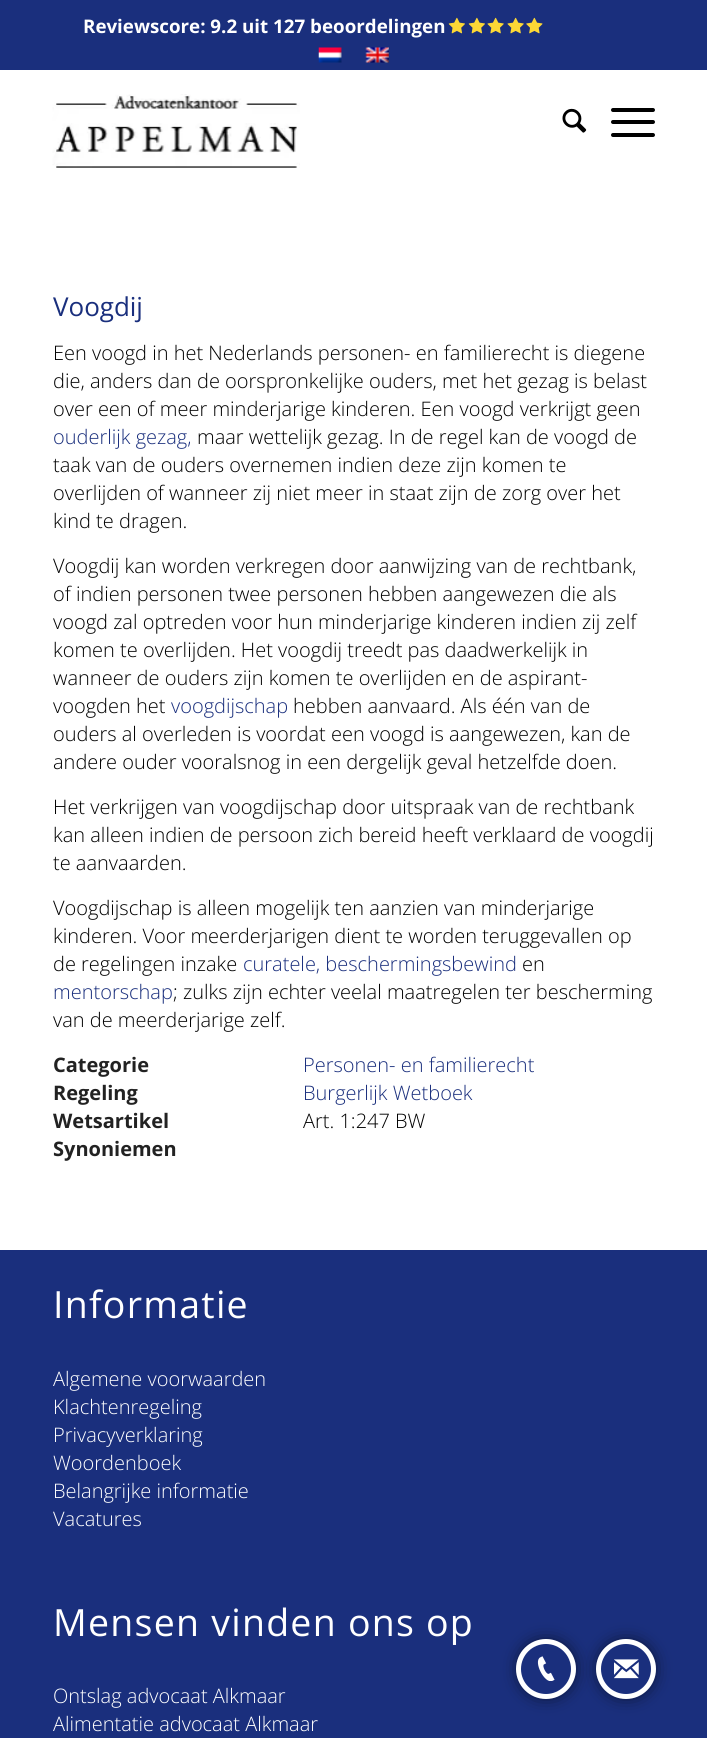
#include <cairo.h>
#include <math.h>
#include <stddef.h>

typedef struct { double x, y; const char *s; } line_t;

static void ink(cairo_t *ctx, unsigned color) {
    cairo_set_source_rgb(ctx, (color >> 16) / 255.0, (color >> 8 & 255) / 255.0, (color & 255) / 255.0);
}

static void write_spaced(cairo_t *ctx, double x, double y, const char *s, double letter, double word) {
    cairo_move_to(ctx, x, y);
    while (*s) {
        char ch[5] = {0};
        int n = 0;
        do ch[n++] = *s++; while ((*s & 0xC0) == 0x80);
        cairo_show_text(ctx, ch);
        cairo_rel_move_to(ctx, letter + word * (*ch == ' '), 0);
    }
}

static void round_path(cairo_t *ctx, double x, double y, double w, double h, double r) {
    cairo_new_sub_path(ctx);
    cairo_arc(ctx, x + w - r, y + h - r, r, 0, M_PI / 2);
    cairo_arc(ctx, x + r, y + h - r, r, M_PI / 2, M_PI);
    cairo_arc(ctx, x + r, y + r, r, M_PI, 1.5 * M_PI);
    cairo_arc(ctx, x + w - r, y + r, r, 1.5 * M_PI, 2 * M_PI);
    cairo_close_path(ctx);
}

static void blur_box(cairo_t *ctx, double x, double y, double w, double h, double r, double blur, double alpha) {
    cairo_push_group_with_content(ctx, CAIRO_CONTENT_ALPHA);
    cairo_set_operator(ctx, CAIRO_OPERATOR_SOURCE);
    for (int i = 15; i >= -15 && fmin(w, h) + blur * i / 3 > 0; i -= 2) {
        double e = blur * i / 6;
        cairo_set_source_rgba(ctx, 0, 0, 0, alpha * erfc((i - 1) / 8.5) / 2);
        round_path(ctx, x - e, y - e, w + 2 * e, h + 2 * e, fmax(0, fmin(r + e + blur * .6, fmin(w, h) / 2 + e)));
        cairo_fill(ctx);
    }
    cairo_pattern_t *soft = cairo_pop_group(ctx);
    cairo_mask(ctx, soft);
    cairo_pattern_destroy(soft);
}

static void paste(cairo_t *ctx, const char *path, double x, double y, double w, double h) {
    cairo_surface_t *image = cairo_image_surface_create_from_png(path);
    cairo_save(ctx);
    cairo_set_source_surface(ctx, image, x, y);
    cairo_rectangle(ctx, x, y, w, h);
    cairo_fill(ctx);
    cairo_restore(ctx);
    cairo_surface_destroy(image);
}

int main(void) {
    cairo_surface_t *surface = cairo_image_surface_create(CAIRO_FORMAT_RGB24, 707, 1738);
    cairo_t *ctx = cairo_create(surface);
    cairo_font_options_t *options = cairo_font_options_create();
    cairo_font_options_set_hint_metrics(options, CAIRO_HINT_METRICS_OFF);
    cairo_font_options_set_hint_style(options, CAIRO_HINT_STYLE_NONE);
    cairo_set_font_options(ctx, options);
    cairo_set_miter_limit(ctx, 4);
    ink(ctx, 0xFFFFFF);
    cairo_paint(ctx);
    ink(ctx, 0x1A2F7D);
    cairo_rectangle(ctx, 0, 0, 707, 70);
    cairo_fill(ctx);
    cairo_select_font_face(ctx, "Open Sans", CAIRO_FONT_SLANT_NORMAL, CAIRO_FONT_WEIGHT_BOLD);
    cairo_set_font_size(ctx, 18.75);
    ink(ctx, 0xFFFFFF);
    cairo_move_to(ctx, 83, 33);
    cairo_show_text(ctx, "Reviewscore: 9.2 uit 127 beoordelingen");
    paste(ctx, "media/1.png", 448, 17, 17, 17);
    paste(ctx, "media/1.png", 468, 17, 17, 17);
    paste(ctx, "media/2.png", 487, 17, 17, 17);
    paste(ctx, "media/2.png", 507, 17, 17, 17);
    paste(ctx, "media/3.png", 526, 17, 17, 17);
    paste(ctx, "media/4.png", 318, 47, 24, 16);
    paste(ctx, "media/5.png", 365, 47, 24, 16);
    paste(ctx, "media/6.png", 52, 94, 248, 74);
    paste(ctx, "media/7.png", 562, 108, 25, 25);
    ink(ctx, 0x000000);
    round_path(ctx, 611, 120, 44, 4, 2);
    cairo_fill(ctx);
    round_path(ctx, 611, 108, 44, 4, 2);
    cairo_fill(ctx);
    round_path(ctx, 611, 133, 44, 4, 2);
    cairo_fill(ctx);
    cairo_select_font_face(ctx, "Open Sans", CAIRO_FONT_SLANT_NORMAL, CAIRO_FONT_WEIGHT_NORMAL);
    cairo_set_font_size(ctx, 26);
    ink(ctx, 0x1A2F7D);
    cairo_move_to(ctx, 53, 316);
    cairo_show_text(ctx, "Voogdij");
    cairo_select_font_face(ctx, "Open Sans Light", CAIRO_FONT_SLANT_NORMAL, CAIRO_FONT_WEIGHT_NORMAL);
    cairo_set_font_size(ctx, 20);
    ink(ctx, 0x000000);
    {
        static const line_t items[] = {
            {53, 360, "Een voogd in het Nederlands personen- en familierecht is diegene"},
            {53, 388, "die, anders dan de oorspronkelijke ouders, met het gezag is belast"},
            {53, 416, "over een of meer minderjarige kinderen. Een voogd verkrijgt geen"},
        };
        for (size_t i = 0; i < sizeof items / sizeof *items; i++) {
            cairo_move_to(ctx, items[i].x, items[i].y);
            cairo_show_text(ctx, items[i].s);
        }
    }
    ink(ctx, 0x1A2F7D);
    cairo_move_to(ctx, 53, 444);
    cairo_show_text(ctx, "ouderlijk gezag,");
    ink(ctx, 0x000000);
    {
        static const line_t items[] = {
            {197, 444, "maar wettelijk gezag. In de regel kan de voogd de"},
            {53, 472, "taak van de ouders overnemen indien deze zijn komen te"},
            {53, 500, "overlijden of wanneer zij niet meer in staat zijn de zorg over het"},
            {53, 528, "kind te dragen."},
            {53, 573, "Voogdij kan worden verkregen door aanwijzing van de rechtbank,"},
            {53, 601, "of indien personen twee personen hebben aangewezen die als"},
            {53, 629, "voogd zal optreden voor hun minderjarige kinderen indien zij zelf"},
            {53, 657, "komen te overlijden. Het voogdij treedt pas daadwerkelijk in"},
            {53, 685, "wanneer de ouders zijn komen te overlijden en de aspirant-"},
            {53, 713, "voogden het"},
        };
        for (size_t i = 0; i < sizeof items / sizeof *items; i++) {
            cairo_move_to(ctx, items[i].x, items[i].y);
            cairo_show_text(ctx, items[i].s);
        }
    }
    ink(ctx, 0x1A2F7D);
    cairo_move_to(ctx, 171, 713);
    cairo_show_text(ctx, "voogdijschap");
    ink(ctx, 0x000000);
    {
        static const line_t items[] = {
            {293, 713, "hebben aanvaard. Als één van de"},
            {53, 741, "ouders al overleden is voordat een voogd is aangewezen, kan de"},
            {53, 769, "andere ouder vooralsnog in een dergelijk geval hetzelfde doen."},
            {53, 814, "Het verkrijgen van voogdijschap door uitspraak van de rechtbank"},
            {53, 842, "kan alleen indien de persoon zich bereid heeft verklaard de voogdij"},
            {53, 870, "te aanvaarden."},
            {53, 915, "Voogdijschap is alleen mogelijk ten aanzien van minderjarige"},
            {53, 943, "kinderen. Voor meerderjarigen dient te worden teruggevallen op"},
            {53, 971, "de regelingen inzake"},
        };
        for (size_t i = 0; i < sizeof items / sizeof *items; i++) {
            cairo_move_to(ctx, items[i].x, items[i].y);
            cairo_show_text(ctx, items[i].s);
        }
    }
    ink(ctx, 0x1A2F7D);
    cairo_move_to(ctx, 243, 971);
    cairo_show_text(ctx, "curatele, beschermingsbewind");
    ink(ctx, 0x000000);
    cairo_move_to(ctx, 522, 971);
    cairo_show_text(ctx, "en");
    ink(ctx, 0x1A2F7D);
    cairo_move_to(ctx, 53, 999);
    cairo_show_text(ctx, "mentorschap");
    ink(ctx, 0x000000);
    cairo_move_to(ctx, 173, 999);
    cairo_show_text(ctx, "; zulks zijn echter veelal maatregelen ter bescherming");
    cairo_move_to(ctx, 53, 1027);
    cairo_show_text(ctx, "van de meerderjarige zelf.");
    cairo_select_font_face(ctx, "Open Sans", CAIRO_FONT_SLANT_NORMAL, CAIRO_FONT_WEIGHT_BOLD);
    ink(ctx, 0x222222);
    cairo_move_to(ctx, 53, 1072);
    cairo_show_text(ctx, "Categorie");
    cairo_select_font_face(ctx, "Open Sans Light", CAIRO_FONT_SLANT_NORMAL, CAIRO_FONT_WEIGHT_NORMAL);
    ink(ctx, 0x1A2F7D);
    cairo_move_to(ctx, 303, 1072);
    cairo_show_text(ctx, "Personen- en familierecht");
    cairo_select_font_face(ctx, "Open Sans", CAIRO_FONT_SLANT_NORMAL, CAIRO_FONT_WEIGHT_BOLD);
    ink(ctx, 0x222222);
    cairo_move_to(ctx, 53, 1100);
    cairo_show_text(ctx, "Regeling");
    cairo_select_font_face(ctx, "Open Sans Light", CAIRO_FONT_SLANT_NORMAL, CAIRO_FONT_WEIGHT_NORMAL);
    ink(ctx, 0x1A2F7D);
    cairo_move_to(ctx, 303, 1100);
    cairo_show_text(ctx, "Burgerlijk Wetboek");
    cairo_select_font_face(ctx, "Open Sans", CAIRO_FONT_SLANT_NORMAL, CAIRO_FONT_WEIGHT_BOLD);
    ink(ctx, 0x222222);
    cairo_move_to(ctx, 53, 1128);
    cairo_show_text(ctx, "Wetsartikel");
    cairo_select_font_face(ctx, "Open Sans Light", CAIRO_FONT_SLANT_NORMAL, CAIRO_FONT_WEIGHT_NORMAL);
    ink(ctx, 0x000000);
    cairo_move_to(ctx, 303, 1128);
    cairo_show_text(ctx, "Art. 1:247 BW");
    cairo_select_font_face(ctx, "Open Sans", CAIRO_FONT_SLANT_NORMAL, CAIRO_FONT_WEIGHT_BOLD);
    ink(ctx, 0x222222);
    cairo_move_to(ctx, 53, 1156);
    cairo_show_text(ctx, "Synoniemen");
    ink(ctx, 0x1A2F7D);
    cairo_rectangle(ctx, 0, 1250, 707, 488);
    cairo_fill(ctx);
    cairo_select_font_face(ctx, "Open Sans", CAIRO_FONT_SLANT_NORMAL, CAIRO_FONT_WEIGHT_NORMAL);
    cairo_set_font_size(ctx, 37.5);
    ink(ctx, 0xFFFFFF);
    write_spaced(ctx, 53, 1318, "Informatie", 1.25, 0);
    cairo_select_font_face(ctx, "Open Sans Light", CAIRO_FONT_SLANT_NORMAL, CAIRO_FONT_WEIGHT_NORMAL);
    cairo_set_font_size(ctx, 20);
    {
        static const line_t items[] = {
            {53, 1386, "Algemene voorwaarden"},
            {53, 1414, "Klachtenregeling"},
            {53, 1442, "Privacyverklaring"},
            {53, 1470, "Woordenboek"},
            {53, 1498, "Belangrijke informatie"},
            {53, 1526, "Vacatures"},
        };
        for (size_t i = 0; i < sizeof items / sizeof *items; i++) {
            cairo_move_to(ctx, items[i].x, items[i].y);
            cairo_show_text(ctx, items[i].s);
        }
    }
    cairo_select_font_face(ctx, "Open Sans", CAIRO_FONT_SLANT_NORMAL, CAIRO_FONT_WEIGHT_NORMAL);
    cairo_set_font_size(ctx, 37.5);
    write_spaced(ctx, 53, 1636, "Mensen vinden ons op", 1.25, 0);
    cairo_select_font_face(ctx, "Open Sans Light", CAIRO_FONT_SLANT_NORMAL, CAIRO_FONT_WEIGHT_NORMAL);
    cairo_set_font_size(ctx, 20);
    cairo_move_to(ctx, 53, 1703);
    cairo_show_text(ctx, "Ontslag advocaat Alkmaar");
    cairo_move_to(ctx, 53, 1731);
    cairo_show_text(ctx, "Alimentatie advocaat Alkmaar");
    ink(ctx, 0x000000);
    blur_box(ctx, 523, 1645, 47, 48, 23.5, 9.5, 1);
    ink(ctx, 0x1A2F7D);
    cairo_arc(ctx, 546, 1669, 27.5, 0, 2 * M_PI);
    cairo_fill_preserve(ctx);
    ink(ctx, 0xFFFFFF);
    cairo_set_line_width(ctx, 5);
    cairo_stroke(ctx);
    paste(ctx, "media/8.png", 537, 1656, 18, 25);
    ink(ctx, 0x000000);
    blur_box(ctx, 603, 1645, 47, 48, 23.5, 9.5, 1);
    ink(ctx, 0x1A2F7D);
    cairo_arc(ctx, 626, 1669, 27.5, 0, 2 * M_PI);
    cairo_fill_preserve(ctx);
    ink(ctx, 0xFFFFFF);
    cairo_stroke(ctx);
    paste(ctx, "media/9.png", 614, 1659, 25, 20);
    cairo_surface_write_to_png(surface, "image.png");
    cairo_font_options_destroy(options);
    cairo_destroy(ctx);
    cairo_surface_destroy(surface);
    return 0;
}
